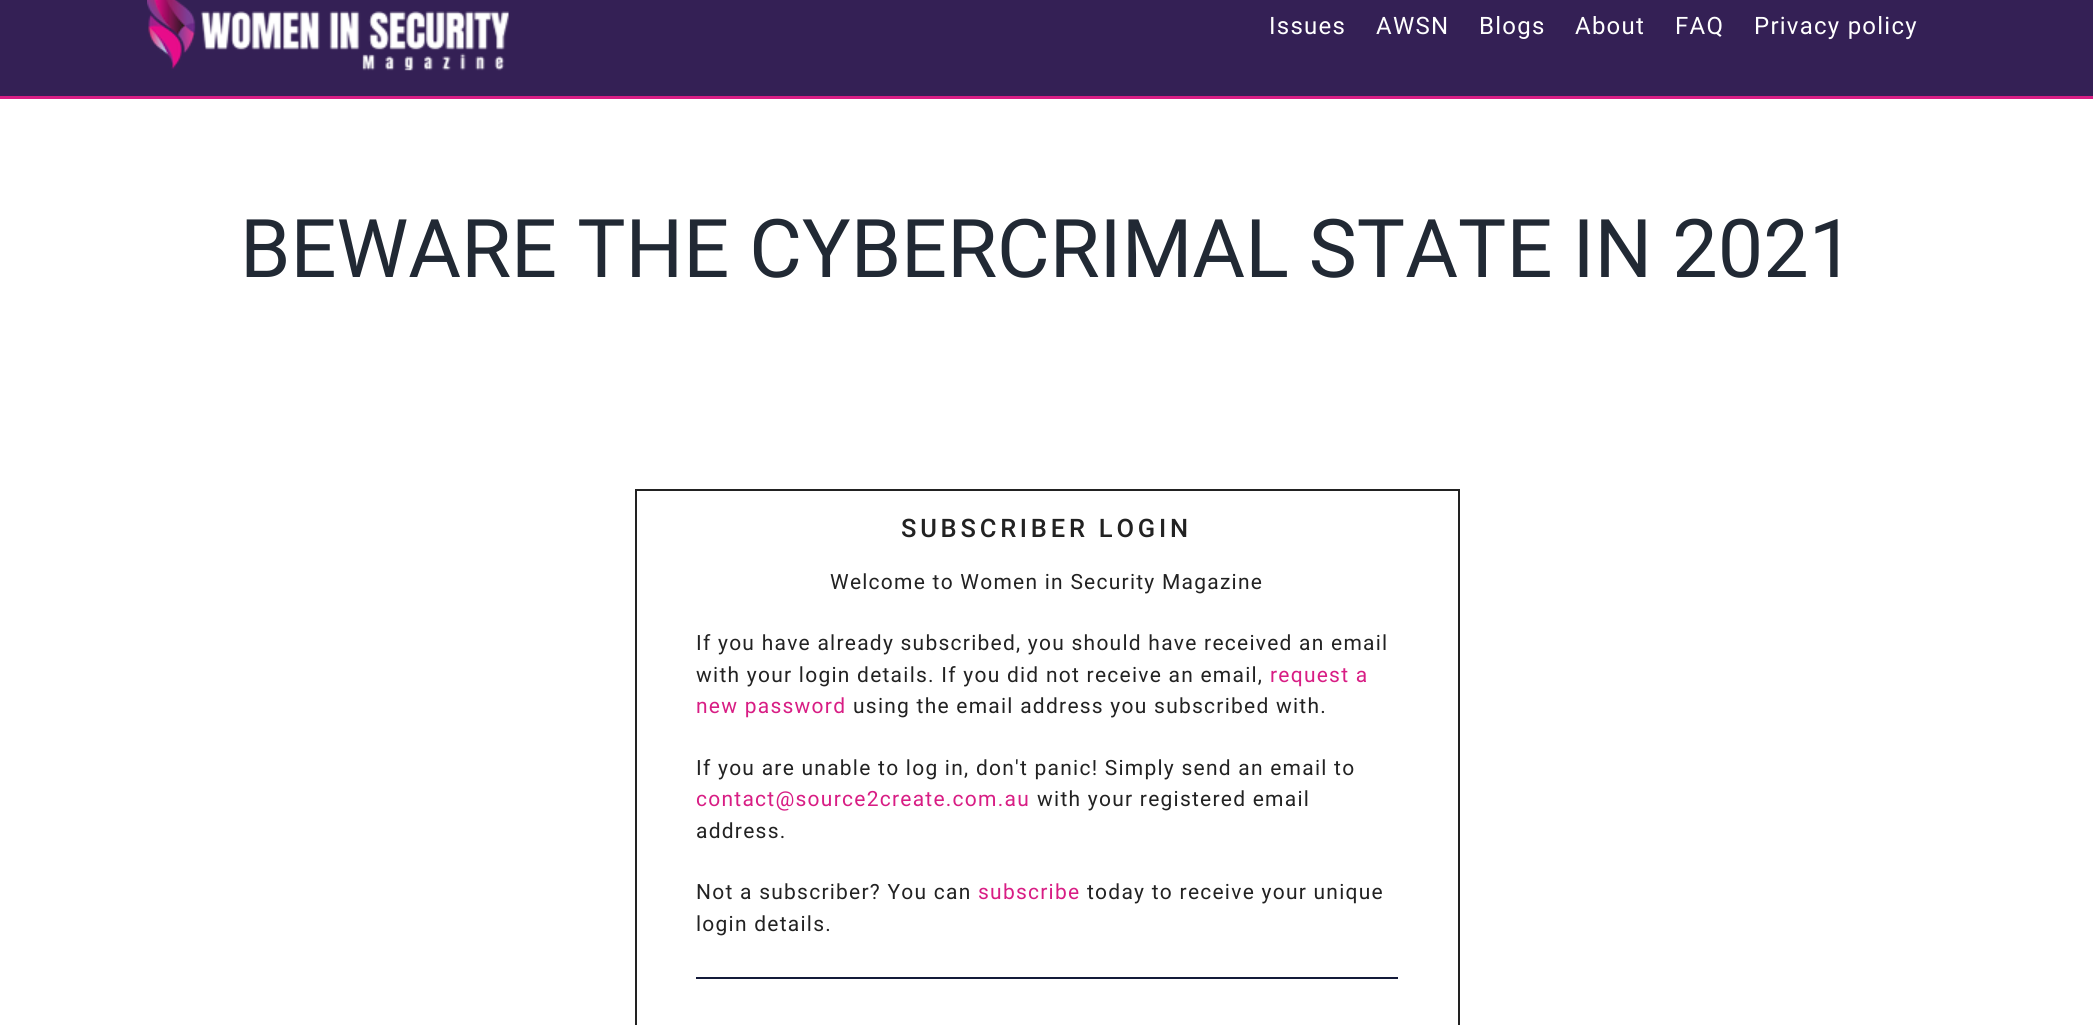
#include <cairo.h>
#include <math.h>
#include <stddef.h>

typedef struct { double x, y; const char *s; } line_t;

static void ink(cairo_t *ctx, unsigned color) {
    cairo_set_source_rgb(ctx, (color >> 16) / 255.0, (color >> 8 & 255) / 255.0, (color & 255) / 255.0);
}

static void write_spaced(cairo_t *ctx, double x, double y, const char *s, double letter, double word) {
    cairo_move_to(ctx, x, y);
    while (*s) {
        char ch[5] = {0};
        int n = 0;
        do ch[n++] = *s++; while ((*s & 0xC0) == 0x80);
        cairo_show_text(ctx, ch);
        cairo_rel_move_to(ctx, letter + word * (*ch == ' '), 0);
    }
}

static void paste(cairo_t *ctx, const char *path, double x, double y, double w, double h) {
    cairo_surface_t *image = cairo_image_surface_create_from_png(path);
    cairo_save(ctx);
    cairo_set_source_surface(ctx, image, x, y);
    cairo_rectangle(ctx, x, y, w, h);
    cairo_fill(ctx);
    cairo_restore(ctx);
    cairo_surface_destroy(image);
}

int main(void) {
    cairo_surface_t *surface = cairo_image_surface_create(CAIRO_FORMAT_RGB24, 2093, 1025);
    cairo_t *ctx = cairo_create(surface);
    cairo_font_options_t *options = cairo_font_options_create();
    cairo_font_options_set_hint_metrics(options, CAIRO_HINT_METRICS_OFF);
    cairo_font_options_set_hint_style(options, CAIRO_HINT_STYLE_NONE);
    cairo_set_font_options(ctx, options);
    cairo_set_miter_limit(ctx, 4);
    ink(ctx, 0xFFFFFF);
    cairo_paint(ctx);
    ink(ctx, 0x342055);
    cairo_rectangle(ctx, 0, 0, 2093, 96);
    cairo_fill(ctx);
    ink(ctx, 0xD81D84);
    cairo_rectangle(ctx, 0, 96, 2093, 3);
    cairo_fill(ctx);
    paste(ctx, "media/1.png", 147, 0, 362, 71);
    cairo_select_font_face(ctx, "Roboto", CAIRO_FONT_SLANT_NORMAL, CAIRO_FONT_WEIGHT_NORMAL);
    cairo_set_font_size(ctx, 24);
    ink(ctx, 0xFFFFFF);
    {
        static const line_t items[] = {
            {1269, 34, "Issues"},
            {1376, 34, "AWSN"},
            {1479, 34, "Blogs"},
            {1575, 34, "About"},
            {1675, 34, "FAQ"},
            {1754, 34, "Privacy policy"},
        };
        for (size_t i = 0; i < sizeof items / sizeof *items; i++) {
            write_spaced(ctx, items[i].x, items[i].y, items[i].s, 1.25, 0);
        }
    }
    cairo_set_font_size(ctx, 81);
    ink(ctx, 0x212934);
    cairo_move_to(ctx, 240, 277);
    cairo_show_text(ctx, "BEWARE THE CYBERCRIMAL STATE IN 2021");
    cairo_rectangle(ctx, 636, 490, 823, 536);
    ink(ctx, 0x222222);
    cairo_stroke(ctx);
    cairo_select_font_face(ctx, "Roboto Medium", CAIRO_FONT_SLANT_NORMAL, CAIRO_FONT_WEIGHT_NORMAL);
    cairo_set_font_size(ctx, 25.5);
    write_spaced(ctx, 901, 537, "SUBSCRIBER LOGIN", 3.8, 0);
    ink(ctx, 0x131A39);
    cairo_rectangle(ctx, 696, 977, 702, 2);
    cairo_fill(ctx);
    cairo_select_font_face(ctx, "Roboto", CAIRO_FONT_SLANT_NORMAL, CAIRO_FONT_WEIGHT_NORMAL);
    cairo_set_font_size(ctx, 21);
    ink(ctx, 0x222222);
    {
        static const line_t items[] = {
            {830, 589, "Welcome to Women in Security Magazine"},
            {696, 650, "If you have already subscribed, you should have received an email"},
            {696, 682, "with your login details. If you did not receive an email,"},
        };
        for (size_t i = 0; i < sizeof items / sizeof *items; i++) {
            write_spaced(ctx, items[i].x, items[i].y, items[i].s, 1.25, 0);
        }
    }
    ink(ctx, 0xD81D84);
    write_spaced(ctx, 1270, 682, "request a", 1.25, 0);
    write_spaced(ctx, 696, 713, "new password", 1.25, 0);
    ink(ctx, 0x222222);
    write_spaced(ctx, 853, 713, "using the email address you subscribed with.", 1.25, 0);
    write_spaced(ctx, 696, 775, "If you are unable to log in, don't panic! Simply send an email to", 1.25, 0);
    ink(ctx, 0xD81D84);
    write_spaced(ctx, 696, 806, "contact@source2create.com.au", 1.25, 0);
    ink(ctx, 0x222222);
    {
        static const line_t items[] = {
            {1037, 806, "with your registered email"},
            {696, 838, "address."},
            {696, 899, "Not a subscriber? You can"},
        };
        for (size_t i = 0; i < sizeof items / sizeof *items; i++) {
            write_spaced(ctx, items[i].x, items[i].y, items[i].s, 1.25, 0);
        }
    }
    ink(ctx, 0xD81D84);
    write_spaced(ctx, 978, 899, "subscribe", 1.25, 0);
    ink(ctx, 0x222222);
    write_spaced(ctx, 1087, 899, "today to receive your unique", 1.25, 0);
    write_spaced(ctx, 696, 931, "login details.", 1.25, 0);
    cairo_surface_write_to_png(surface, "image.png");
    cairo_font_options_destroy(options);
    cairo_destroy(ctx);
    cairo_surface_destroy(surface);
    return 0;
}
